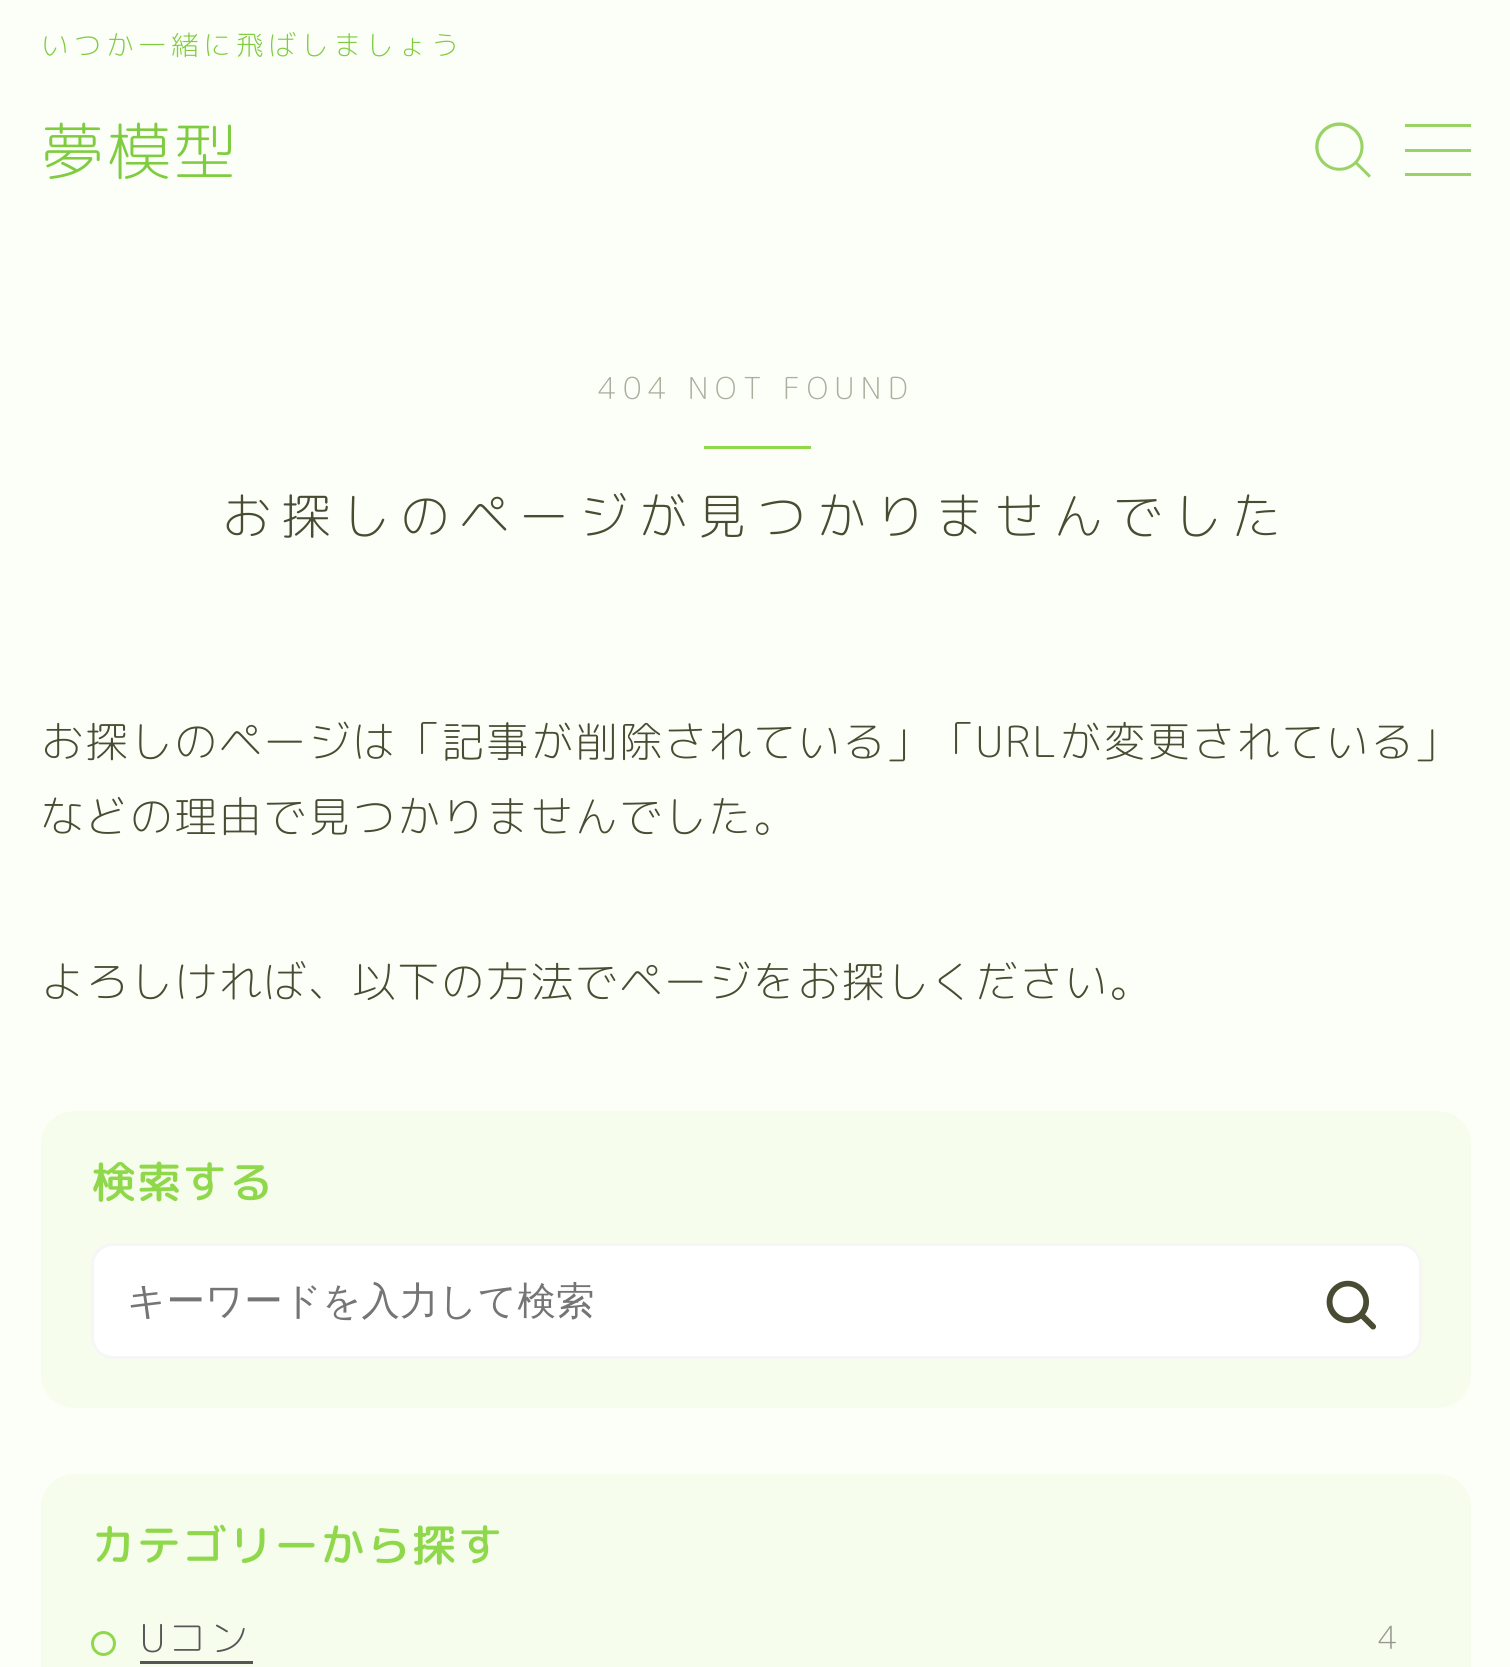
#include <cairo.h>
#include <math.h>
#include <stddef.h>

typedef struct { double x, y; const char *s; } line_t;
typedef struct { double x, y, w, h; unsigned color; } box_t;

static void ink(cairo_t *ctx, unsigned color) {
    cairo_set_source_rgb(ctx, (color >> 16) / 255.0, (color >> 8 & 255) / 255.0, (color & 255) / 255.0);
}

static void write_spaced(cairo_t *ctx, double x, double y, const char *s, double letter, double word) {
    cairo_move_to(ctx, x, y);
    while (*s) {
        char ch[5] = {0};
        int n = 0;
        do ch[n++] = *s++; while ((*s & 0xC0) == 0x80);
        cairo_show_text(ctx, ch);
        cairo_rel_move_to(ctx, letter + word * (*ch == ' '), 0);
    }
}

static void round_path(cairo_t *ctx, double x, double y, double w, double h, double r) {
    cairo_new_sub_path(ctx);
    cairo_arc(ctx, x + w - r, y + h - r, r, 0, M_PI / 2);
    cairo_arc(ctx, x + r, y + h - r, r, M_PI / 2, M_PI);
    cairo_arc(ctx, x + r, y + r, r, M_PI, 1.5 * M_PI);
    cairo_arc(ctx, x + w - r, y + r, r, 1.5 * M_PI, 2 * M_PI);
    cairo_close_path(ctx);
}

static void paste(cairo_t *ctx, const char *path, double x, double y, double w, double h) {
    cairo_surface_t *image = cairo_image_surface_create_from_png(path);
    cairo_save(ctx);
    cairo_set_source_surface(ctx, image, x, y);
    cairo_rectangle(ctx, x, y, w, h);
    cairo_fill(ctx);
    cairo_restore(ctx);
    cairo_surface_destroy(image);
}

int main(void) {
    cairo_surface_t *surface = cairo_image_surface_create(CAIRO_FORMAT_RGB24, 1510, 1667);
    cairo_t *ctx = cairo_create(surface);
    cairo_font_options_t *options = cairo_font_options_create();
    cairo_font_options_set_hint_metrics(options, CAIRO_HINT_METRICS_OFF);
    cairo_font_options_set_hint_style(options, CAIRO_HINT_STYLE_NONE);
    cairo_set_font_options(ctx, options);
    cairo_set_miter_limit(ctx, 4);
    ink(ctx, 0xFCFFF7);
    cairo_paint(ctx);
    cairo_select_font_face(ctx, "Rounded Mplus 1c Light", CAIRO_FONT_SLANT_NORMAL, CAIRO_FONT_WEIGHT_NORMAL);
    cairo_set_font_size(ctx, 27.5);
    ink(ctx, 0x7FCC41);
    write_spaced(ctx, 41, 55, "いつか一緒に飛ばしましょう", 5, 0);
    cairo_set_font_size(ctx, 63);
    write_spaced(ctx, 41, 174, "夢模型", 3, 0);
    paste(ctx, "media/1.png", 1315, 122, 56, 56);
    {
        static const box_t items[] = {
            {1405, 124, 66, 3, 0x9AD365},
            {1405, 149, 66, 3, 0x9AD365},
            {1405, 173, 66, 3, 0x9AD365},
        };
        for (size_t i = 0; i < sizeof items / sizeof *items; i++) {
            ink(ctx, items[i].color);
            cairo_rectangle(ctx, items[i].x, items[i].y, items[i].w, items[i].h);
            cairo_fill(ctx);
        }
    }
    cairo_set_font_size(ctx, 30.25);
    ink(ctx, 0xABAE9E);
    write_spaced(ctx, 598, 399, "404 NOT FOUND", 6.6, 0);
    ink(ctx, 0x8FD84B);
    cairo_rectangle(ctx, 704, 446, 107, 3);
    cairo_fill(ctx);
    cairo_set_font_size(ctx, 49.5);
    ink(ctx, 0x494C32);
    write_spaced(ctx, 222, 534, "お探しのページが見つかりませんでした", 9.9, 0);
    cairo_set_font_size(ctx, 42.6);
    {
        static const line_t items[] = {
            {41, 757, "お探しのページは「記事が削除されている」「URLが変更されている」"},
            {41, 832, "などの理由で見つかりませんでした。"},
            {41, 997, "よろしければ、以下の方法でページをお探しください。"},
        };
        for (size_t i = 0; i < sizeof items / sizeof *items; i++) {
            write_spaced(ctx, items[i].x, items[i].y, items[i].s, 1.9, 0);
        }
    }
    ink(ctx, 0xF7FDED);
    round_path(ctx, 41, 1111, 1430, 297, 33);
    cairo_fill(ctx);
    cairo_select_font_face(ctx, "Rounded Mplus 1c Medium", CAIRO_FONT_SLANT_NORMAL, CAIRO_FONT_WEIGHT_NORMAL);
    cairo_set_font_size(ctx, 44);
    ink(ctx, 0x8FD84B);
    write_spaced(ctx, 91, 1198, "検索する", 1.9, 0);
    ink(ctx, 0xFFFFFF);
    round_path(ctx, 92.5, 1244.5, 1328, 113, 20.5);
    cairo_fill_preserve(ctx);
    ink(ctx, 0xF6F6F6);
    cairo_set_line_width(ctx, 3);
    cairo_stroke(ctx);
    cairo_select_font_face(ctx, "WenQuanYi Zen Hei Medium", CAIRO_FONT_SLANT_NORMAL, CAIRO_FONT_WEIGHT_NORMAL);
    cairo_set_font_size(ctx, 38.5);
    ink(ctx, 0x757575);
    cairo_move_to(ctx, 127, 1314);
    cairo_show_text(ctx, "キーワードを入力して検索");
    paste(ctx, "media/2.png", 1326, 1280, 51, 50);
    ink(ctx, 0xF6FDED);
    round_path(ctx, 41, 1474, 1430, 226, 33);
    cairo_fill(ctx);
    cairo_select_font_face(ctx, "Rounded Mplus 1c Medium", CAIRO_FONT_SLANT_NORMAL, CAIRO_FONT_WEIGHT_NORMAL);
    cairo_set_font_size(ctx, 44);
    ink(ctx, 0x8FD84B);
    write_spaced(ctx, 91, 1561, "カテゴリーから探す", 1.9, 0);
    cairo_new_path(ctx);
    cairo_arc(ctx, 103.5, 1643.5, 11, 0, 2 * M_PI);
    cairo_stroke(ctx);
    cairo_select_font_face(ctx, "Rounded Mplus 1c Light", CAIRO_FONT_SLANT_NORMAL, CAIRO_FONT_WEIGHT_NORMAL);
    cairo_set_font_size(ctx, 38.5);
    ink(ctx, 0x565656);
    write_spaced(ctx, 140, 1652, "Uコン", 3, 0);
    cairo_rectangle(ctx, 140, 1661, 113, 3);
    cairo_fill(ctx);
    cairo_set_font_size(ctx, 32);
    ink(ctx, 0x969992);
    cairo_move_to(ctx, 1378, 1649);
    cairo_show_text(ctx, "4");
    cairo_surface_write_to_png(surface, "image.png");
    cairo_font_options_destroy(options);
    cairo_destroy(ctx);
    cairo_surface_destroy(surface);
    return 0;
}
